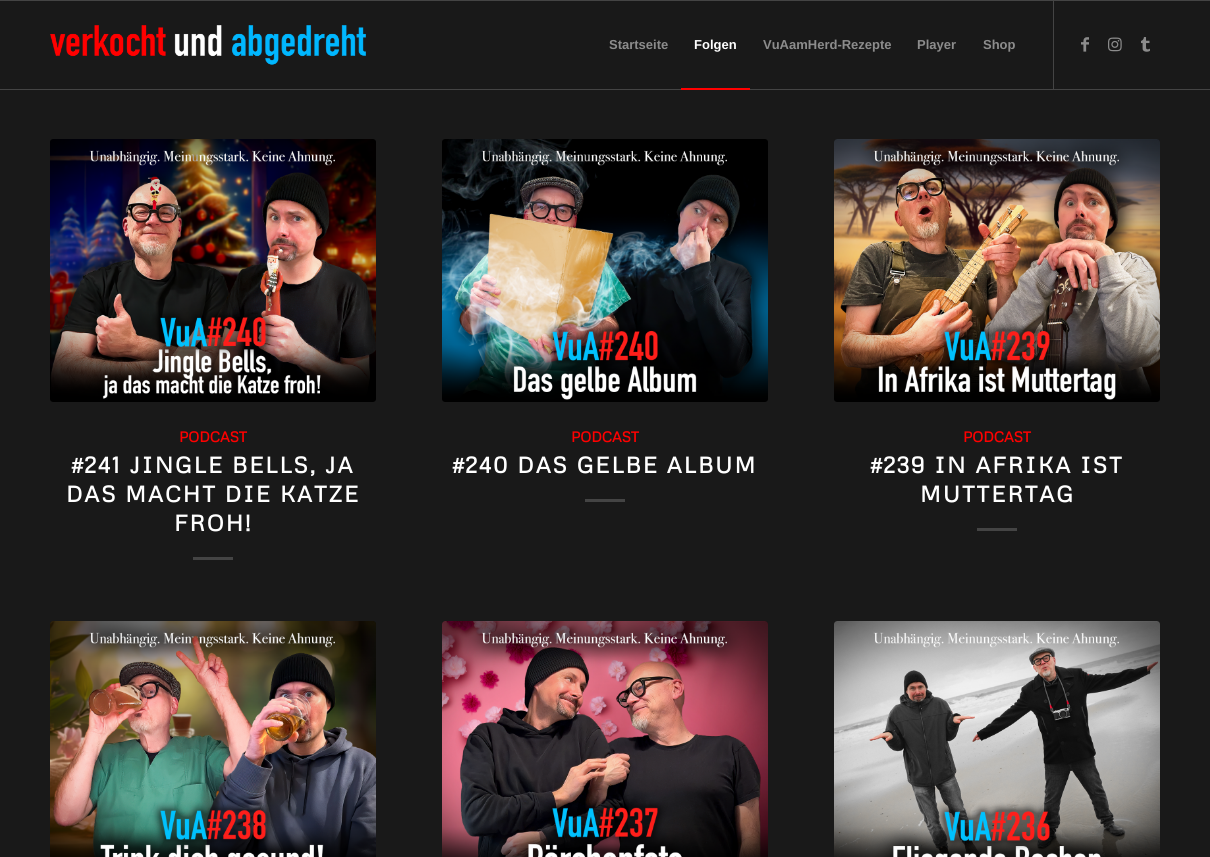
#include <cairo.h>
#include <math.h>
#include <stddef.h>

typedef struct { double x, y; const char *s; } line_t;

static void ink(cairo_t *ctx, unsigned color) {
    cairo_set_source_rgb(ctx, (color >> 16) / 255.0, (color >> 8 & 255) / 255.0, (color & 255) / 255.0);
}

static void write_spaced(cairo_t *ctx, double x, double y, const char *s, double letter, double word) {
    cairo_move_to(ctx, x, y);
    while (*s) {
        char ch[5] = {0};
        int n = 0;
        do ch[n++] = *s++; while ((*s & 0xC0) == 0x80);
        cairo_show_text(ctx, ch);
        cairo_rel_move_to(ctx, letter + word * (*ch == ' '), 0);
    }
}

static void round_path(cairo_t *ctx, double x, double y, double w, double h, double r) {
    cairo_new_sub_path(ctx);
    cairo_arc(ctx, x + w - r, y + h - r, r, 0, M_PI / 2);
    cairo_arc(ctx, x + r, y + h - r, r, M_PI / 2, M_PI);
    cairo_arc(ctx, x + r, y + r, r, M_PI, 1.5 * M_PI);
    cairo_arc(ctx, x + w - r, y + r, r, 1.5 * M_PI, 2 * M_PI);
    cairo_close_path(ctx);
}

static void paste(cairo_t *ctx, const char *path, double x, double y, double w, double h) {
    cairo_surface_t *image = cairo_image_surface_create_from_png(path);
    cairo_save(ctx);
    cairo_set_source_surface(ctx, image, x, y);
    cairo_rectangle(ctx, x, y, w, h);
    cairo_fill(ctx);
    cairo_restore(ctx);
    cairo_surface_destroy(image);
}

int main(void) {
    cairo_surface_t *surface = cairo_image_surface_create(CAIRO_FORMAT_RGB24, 1210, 857);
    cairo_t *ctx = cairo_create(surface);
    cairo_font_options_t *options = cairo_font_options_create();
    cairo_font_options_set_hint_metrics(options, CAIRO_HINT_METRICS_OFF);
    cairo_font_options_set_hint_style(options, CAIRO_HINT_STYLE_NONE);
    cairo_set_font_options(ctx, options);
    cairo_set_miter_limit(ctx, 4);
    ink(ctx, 0x191919);
    cairo_paint(ctx);
    ink(ctx, 0x444444);
    cairo_rectangle(ctx, 0, 0, 1210, 1);
    cairo_fill(ctx);
    cairo_rectangle(ctx, 0, 89, 1210, 1);
    cairo_fill(ctx);
    paste(ctx, "media/1.png", 50, 25, 316, 40);
    cairo_rectangle(ctx, 1053, 1, 1, 88);
    cairo_fill(ctx);
    cairo_select_font_face(ctx, "Liberation Sans", CAIRO_FONT_SLANT_NORMAL, CAIRO_FONT_WEIGHT_BOLD);
    cairo_set_font_size(ctx, 13);
    ink(ctx, 0x8C8C8C);
    cairo_move_to(ctx, 609, 49);
    cairo_show_text(ctx, "Startseite");
    ink(ctx, 0xFFFFFF);
    cairo_move_to(ctx, 694, 49);
    cairo_show_text(ctx, "Folgen");
    ink(ctx, 0xFF0000);
    cairo_rectangle(ctx, 681, 88, 69, 2);
    cairo_fill(ctx);
    ink(ctx, 0x8C8C8C);
    {
        static const line_t items[] = {
            {763, 49, "VuAamHerd-Rezepte"},
            {917, 49, "Player"},
            {983, 49, "Shop"},
        };
        for (size_t i = 0; i < sizeof items / sizeof *items; i++) {
            cairo_move_to(ctx, items[i].x, items[i].y);
            cairo_show_text(ctx, items[i].s);
        }
    }
    paste(ctx, "media/2.png", 1081, 37, 8, 15);
    paste(ctx, "media/3.png", 1108, 37, 14, 15);
    paste(ctx, "media/4.png", 1141, 37, 9, 15);
    ink(ctx, 0x111111);
    round_path(ctx, 50, 139, 326, 263, 3);
    cairo_fill(ctx);
    paste(ctx, "media/5.png", 50, 139, 326, 263);
    cairo_select_font_face(ctx, "Metrophobic", CAIRO_FONT_SLANT_NORMAL, CAIRO_FONT_WEIGHT_BOLD);
    cairo_set_font_size(ctx, 14.5);
    ink(ctx, 0xFF0000);
    cairo_move_to(ctx, 179, 442);
    cairo_show_text(ctx, "PODCAST");
    cairo_set_font_size(ctx, 22.4);
    ink(ctx, 0xFFFFFF);
    {
        static const line_t items[] = {
            {72, 473, "#241 JINGLE BELLS, JA"},
            {66, 502, "DAS MACHT DIE KATZE"},
            {174, 531, "FROH!"},
        };
        for (size_t i = 0; i < sizeof items / sizeof *items; i++) {
            write_spaced(ctx, items[i].x, items[i].y, items[i].s, 2, 0);
        }
    }
    ink(ctx, 0x444444);
    cairo_rectangle(ctx, 193, 557, 40, 3);
    cairo_fill(ctx);
    ink(ctx, 0x111111);
    round_path(ctx, 442, 139, 326, 263, 3);
    cairo_fill(ctx);
    paste(ctx, "media/6.png", 442, 139, 326, 263);
    cairo_set_font_size(ctx, 14.5);
    ink(ctx, 0xFF0000);
    cairo_move_to(ctx, 571, 442);
    cairo_show_text(ctx, "PODCAST");
    cairo_set_font_size(ctx, 22.4);
    ink(ctx, 0xFFFFFF);
    write_spaced(ctx, 453, 473, "#240 DAS GELBE ALBUM", 2, 0);
    ink(ctx, 0x444444);
    cairo_rectangle(ctx, 585, 499, 40, 3);
    cairo_fill(ctx);
    ink(ctx, 0x111111);
    round_path(ctx, 834, 139, 326, 263, 3);
    cairo_fill(ctx);
    paste(ctx, "media/7.png", 834, 139, 326, 263);
    cairo_set_font_size(ctx, 14.5);
    ink(ctx, 0xFF0000);
    cairo_move_to(ctx, 963, 442);
    cairo_show_text(ctx, "PODCAST");
    cairo_set_font_size(ctx, 22.4);
    ink(ctx, 0xFFFFFF);
    write_spaced(ctx, 871, 473, "#239 IN AFRIKA IST", 2, 0);
    write_spaced(ctx, 920, 502, "MUTTERTAG", 2, 0);
    ink(ctx, 0x444444);
    cairo_rectangle(ctx, 977, 528, 40, 3);
    cairo_fill(ctx);
    ink(ctx, 0x111111);
    round_path(ctx, 50, 621, 326, 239, 3);
    cairo_fill(ctx);
    paste(ctx, "media/8.png", 50, 621, 326, 236);
    round_path(ctx, 442, 621, 326, 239, 3);
    cairo_fill(ctx);
    paste(ctx, "media/9.png", 442, 621, 326, 236);
    round_path(ctx, 834, 621, 326, 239, 3);
    cairo_fill(ctx);
    paste(ctx, "media/10.png", 834, 621, 326, 236);
    cairo_surface_write_to_png(surface, "image.png");
    cairo_font_options_destroy(options);
    cairo_destroy(ctx);
    cairo_surface_destroy(surface);
    return 0;
}
